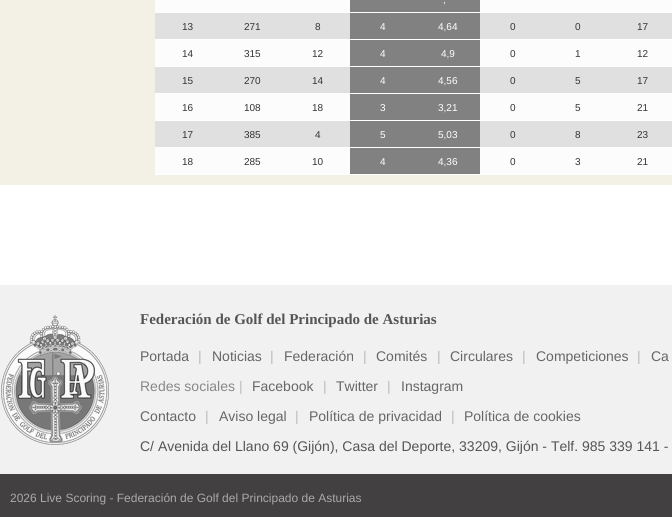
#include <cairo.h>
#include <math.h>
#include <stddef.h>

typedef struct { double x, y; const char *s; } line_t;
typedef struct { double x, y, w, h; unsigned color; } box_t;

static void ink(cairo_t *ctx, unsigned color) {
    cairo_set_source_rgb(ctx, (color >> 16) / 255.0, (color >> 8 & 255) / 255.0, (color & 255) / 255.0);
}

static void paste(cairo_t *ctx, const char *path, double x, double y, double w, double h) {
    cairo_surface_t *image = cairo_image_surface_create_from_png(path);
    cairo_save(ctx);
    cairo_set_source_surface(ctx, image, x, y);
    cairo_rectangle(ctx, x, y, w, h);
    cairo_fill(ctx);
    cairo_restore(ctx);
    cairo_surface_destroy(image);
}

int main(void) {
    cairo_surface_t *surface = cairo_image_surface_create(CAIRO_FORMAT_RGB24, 672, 517);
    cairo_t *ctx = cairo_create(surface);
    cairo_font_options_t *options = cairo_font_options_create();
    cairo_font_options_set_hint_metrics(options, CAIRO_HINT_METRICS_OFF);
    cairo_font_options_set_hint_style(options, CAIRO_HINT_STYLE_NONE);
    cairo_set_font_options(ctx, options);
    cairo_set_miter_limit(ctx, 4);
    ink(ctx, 0xFFFFFF);
    cairo_paint(ctx);
    {
        static const box_t items[] = {
            {0, 0, 672, 185, 0xF3F1E5},
            {155, 0, 195, 12, 0xFCFCFC},
            {350, 0, 130, 12, 0x818181},
            {480, 0, 192, 12, 0xFCFCFC},
        };
        for (size_t i = 0; i < sizeof items / sizeof *items; i++) {
            ink(ctx, items[i].color);
            cairo_rectangle(ctx, items[i].x, items[i].y, items[i].w, items[i].h);
            cairo_fill(ctx);
        }
    }
    cairo_select_font_face(ctx, "Liberation Sans", CAIRO_FONT_SLANT_NORMAL, CAIRO_FONT_WEIGHT_NORMAL);
    cairo_set_font_size(ctx, 10);
    ink(ctx, 0xFFFFFF);
    cairo_move_to(ctx, 443, 3);
    cairo_show_text(ctx, ",");
    cairo_rectangle(ctx, 155, 12, 517, 1);
    cairo_fill(ctx);
    ink(ctx, 0xE0E0E0);
    cairo_rectangle(ctx, 155, 13, 195, 26);
    cairo_fill(ctx);
    ink(ctx, 0x333333);
    {
        static const line_t items[] = {
            {182, 30, "13"},
            {244, 30, "271"},
            {315, 30, "8"},
        };
        for (size_t i = 0; i < sizeof items / sizeof *items; i++) {
            cairo_move_to(ctx, items[i].x, items[i].y);
            cairo_show_text(ctx, items[i].s);
        }
    }
    ink(ctx, 0x818181);
    cairo_rectangle(ctx, 350, 13, 130, 26);
    cairo_fill(ctx);
    ink(ctx, 0xFFFFFF);
    cairo_move_to(ctx, 380, 30);
    cairo_show_text(ctx, "4");
    cairo_move_to(ctx, 438, 30);
    cairo_show_text(ctx, "4,64");
    ink(ctx, 0xE0E0E0);
    cairo_rectangle(ctx, 480, 13, 192, 26);
    cairo_fill(ctx);
    ink(ctx, 0x333333);
    cairo_move_to(ctx, 510, 30);
    cairo_show_text(ctx, "0");
    cairo_move_to(ctx, 575, 30);
    cairo_show_text(ctx, "0");
    ink(ctx, 0xFFFFFF);
    cairo_rectangle(ctx, 155, 39, 517, 1);
    cairo_fill(ctx);
    ink(ctx, 0x333333);
    cairo_move_to(ctx, 637, 30);
    cairo_show_text(ctx, "17");
    ink(ctx, 0xFCFCFC);
    cairo_rectangle(ctx, 155, 40, 195, 26);
    cairo_fill(ctx);
    ink(ctx, 0x333333);
    {
        static const line_t items[] = {
            {182, 57, "14"},
            {244, 57, "315"},
            {312, 57, "12"},
        };
        for (size_t i = 0; i < sizeof items / sizeof *items; i++) {
            cairo_move_to(ctx, items[i].x, items[i].y);
            cairo_show_text(ctx, items[i].s);
        }
    }
    ink(ctx, 0x818181);
    cairo_rectangle(ctx, 350, 40, 130, 26);
    cairo_fill(ctx);
    ink(ctx, 0xFFFFFF);
    cairo_move_to(ctx, 380, 57);
    cairo_show_text(ctx, "4");
    cairo_move_to(ctx, 441, 57);
    cairo_show_text(ctx, "4,9");
    ink(ctx, 0xFCFCFC);
    cairo_rectangle(ctx, 480, 40, 192, 26);
    cairo_fill(ctx);
    ink(ctx, 0x333333);
    cairo_move_to(ctx, 510, 57);
    cairo_show_text(ctx, "0");
    cairo_move_to(ctx, 575, 57);
    cairo_show_text(ctx, "1");
    ink(ctx, 0xFFFFFF);
    cairo_rectangle(ctx, 155, 66, 517, 1);
    cairo_fill(ctx);
    ink(ctx, 0x333333);
    cairo_move_to(ctx, 637, 57);
    cairo_show_text(ctx, "12");
    ink(ctx, 0xE0E0E0);
    cairo_rectangle(ctx, 155, 67, 195, 26);
    cairo_fill(ctx);
    ink(ctx, 0x333333);
    {
        static const line_t items[] = {
            {182, 84, "15"},
            {244, 84, "270"},
            {312, 84, "14"},
        };
        for (size_t i = 0; i < sizeof items / sizeof *items; i++) {
            cairo_move_to(ctx, items[i].x, items[i].y);
            cairo_show_text(ctx, items[i].s);
        }
    }
    ink(ctx, 0x818181);
    cairo_rectangle(ctx, 350, 67, 130, 26);
    cairo_fill(ctx);
    ink(ctx, 0xFFFFFF);
    cairo_move_to(ctx, 380, 84);
    cairo_show_text(ctx, "4");
    cairo_move_to(ctx, 438, 84);
    cairo_show_text(ctx, "4,56");
    ink(ctx, 0xE0E0E0);
    cairo_rectangle(ctx, 480, 67, 192, 26);
    cairo_fill(ctx);
    ink(ctx, 0x333333);
    cairo_move_to(ctx, 510, 84);
    cairo_show_text(ctx, "0");
    cairo_move_to(ctx, 575, 84);
    cairo_show_text(ctx, "5");
    ink(ctx, 0xFFFFFF);
    cairo_rectangle(ctx, 155, 93, 517, 1);
    cairo_fill(ctx);
    ink(ctx, 0x333333);
    cairo_move_to(ctx, 637, 84);
    cairo_show_text(ctx, "17");
    ink(ctx, 0xFCFCFC);
    cairo_rectangle(ctx, 155, 94, 195, 26);
    cairo_fill(ctx);
    ink(ctx, 0x333333);
    {
        static const line_t items[] = {
            {182, 111, "16"},
            {244, 111, "108"},
            {312, 111, "18"},
        };
        for (size_t i = 0; i < sizeof items / sizeof *items; i++) {
            cairo_move_to(ctx, items[i].x, items[i].y);
            cairo_show_text(ctx, items[i].s);
        }
    }
    ink(ctx, 0x818181);
    cairo_rectangle(ctx, 350, 94, 130, 26);
    cairo_fill(ctx);
    ink(ctx, 0xFFFFFF);
    cairo_move_to(ctx, 380, 111);
    cairo_show_text(ctx, "3");
    cairo_move_to(ctx, 438, 111);
    cairo_show_text(ctx, "3,21");
    ink(ctx, 0xFCFCFC);
    cairo_rectangle(ctx, 480, 94, 192, 26);
    cairo_fill(ctx);
    ink(ctx, 0x333333);
    cairo_move_to(ctx, 510, 111);
    cairo_show_text(ctx, "0");
    cairo_move_to(ctx, 575, 111);
    cairo_show_text(ctx, "5");
    ink(ctx, 0xFFFFFF);
    cairo_rectangle(ctx, 155, 120, 517, 1);
    cairo_fill(ctx);
    ink(ctx, 0x333333);
    cairo_move_to(ctx, 637, 111);
    cairo_show_text(ctx, "21");
    ink(ctx, 0xE0E0E0);
    cairo_rectangle(ctx, 155, 121, 195, 26);
    cairo_fill(ctx);
    ink(ctx, 0x333333);
    {
        static const line_t items[] = {
            {182, 138, "17"},
            {244, 138, "385"},
            {315, 138, "4"},
        };
        for (size_t i = 0; i < sizeof items / sizeof *items; i++) {
            cairo_move_to(ctx, items[i].x, items[i].y);
            cairo_show_text(ctx, items[i].s);
        }
    }
    ink(ctx, 0x818181);
    cairo_rectangle(ctx, 350, 121, 130, 26);
    cairo_fill(ctx);
    ink(ctx, 0xFFFFFF);
    cairo_move_to(ctx, 380, 138);
    cairo_show_text(ctx, "5");
    cairo_move_to(ctx, 438, 138);
    cairo_show_text(ctx, "5,03");
    ink(ctx, 0xE0E0E0);
    cairo_rectangle(ctx, 480, 121, 192, 26);
    cairo_fill(ctx);
    ink(ctx, 0x333333);
    cairo_move_to(ctx, 510, 138);
    cairo_show_text(ctx, "0");
    cairo_move_to(ctx, 575, 138);
    cairo_show_text(ctx, "8");
    ink(ctx, 0xFFFFFF);
    cairo_rectangle(ctx, 155, 147, 517, 1);
    cairo_fill(ctx);
    ink(ctx, 0x333333);
    cairo_move_to(ctx, 637, 138);
    cairo_show_text(ctx, "23");
    ink(ctx, 0xFCFCFC);
    cairo_rectangle(ctx, 155, 148, 195, 26);
    cairo_fill(ctx);
    ink(ctx, 0x333333);
    {
        static const line_t items[] = {
            {182, 165, "18"},
            {244, 165, "285"},
            {312, 165, "10"},
        };
        for (size_t i = 0; i < sizeof items / sizeof *items; i++) {
            cairo_move_to(ctx, items[i].x, items[i].y);
            cairo_show_text(ctx, items[i].s);
        }
    }
    ink(ctx, 0x818181);
    cairo_rectangle(ctx, 350, 148, 130, 26);
    cairo_fill(ctx);
    ink(ctx, 0xFFFFFF);
    cairo_move_to(ctx, 380, 165);
    cairo_show_text(ctx, "4");
    cairo_move_to(ctx, 438, 165);
    cairo_show_text(ctx, "4,36");
    ink(ctx, 0xFCFCFC);
    cairo_rectangle(ctx, 480, 148, 192, 26);
    cairo_fill(ctx);
    ink(ctx, 0x333333);
    cairo_move_to(ctx, 510, 165);
    cairo_show_text(ctx, "0");
    cairo_move_to(ctx, 575, 165);
    cairo_show_text(ctx, "3");
    ink(ctx, 0xFFFFFF);
    cairo_rectangle(ctx, 155, 174, 517, 1);
    cairo_fill(ctx);
    ink(ctx, 0x333333);
    cairo_move_to(ctx, 637, 165);
    cairo_show_text(ctx, "21");
    ink(ctx, 0xF1F1F1);
    cairo_rectangle(ctx, 0, 285, 672, 189);
    cairo_fill(ctx);
    paste(ctx, "media/1.png", 1, 315, 108, 130);
    cairo_select_font_face(ctx, "Liberation Serif", CAIRO_FONT_SLANT_NORMAL, CAIRO_FONT_WEIGHT_BOLD);
    cairo_set_font_size(ctx, 15);
    ink(ctx, 0x555555);
    cairo_move_to(ctx, 140, 324);
    cairo_show_text(ctx, "Federación de Golf del Principado de Asturias");
    cairo_select_font_face(ctx, "Liberation Sans", CAIRO_FONT_SLANT_NORMAL, CAIRO_FONT_WEIGHT_NORMAL);
    cairo_set_font_size(ctx, 14);
    ink(ctx, 0x666666);
    cairo_move_to(ctx, 140, 361);
    cairo_show_text(ctx, "Portada");
    ink(ctx, 0xBBBBBB);
    cairo_move_to(ctx, 198, 361);
    cairo_show_text(ctx, "|");
    ink(ctx, 0x666666);
    cairo_move_to(ctx, 212, 361);
    cairo_show_text(ctx, "Noticias");
    ink(ctx, 0xBBBBBB);
    cairo_move_to(ctx, 270, 361);
    cairo_show_text(ctx, "|");
    ink(ctx, 0x666666);
    cairo_move_to(ctx, 284, 361);
    cairo_show_text(ctx, "Federación");
    ink(ctx, 0xBBBBBB);
    cairo_move_to(ctx, 363, 361);
    cairo_show_text(ctx, "|");
    ink(ctx, 0x666666);
    cairo_move_to(ctx, 376, 361);
    cairo_show_text(ctx, "Comités");
    ink(ctx, 0xBBBBBB);
    cairo_move_to(ctx, 437, 361);
    cairo_show_text(ctx, "|");
    ink(ctx, 0x666666);
    cairo_move_to(ctx, 450, 361);
    cairo_show_text(ctx, "Circulares");
    ink(ctx, 0xBBBBBB);
    cairo_move_to(ctx, 522, 361);
    cairo_show_text(ctx, "|");
    ink(ctx, 0x666666);
    cairo_move_to(ctx, 536, 361);
    cairo_show_text(ctx, "Competiciones");
    ink(ctx, 0xBBBBBB);
    cairo_move_to(ctx, 637, 361);
    cairo_show_text(ctx, "|");
    ink(ctx, 0x666666);
    cairo_move_to(ctx, 651, 361);
    cairo_show_text(ctx, "Ca");
    ink(ctx, 0x888888);
    cairo_move_to(ctx, 140, 391);
    cairo_show_text(ctx, "Redes sociales");
    ink(ctx, 0xBBBBBB);
    cairo_move_to(ctx, 239, 391);
    cairo_show_text(ctx, "|");
    ink(ctx, 0x666666);
    cairo_move_to(ctx, 252, 391);
    cairo_show_text(ctx, "Facebook");
    ink(ctx, 0xBBBBBB);
    cairo_move_to(ctx, 323, 391);
    cairo_show_text(ctx, "|");
    ink(ctx, 0x666666);
    cairo_move_to(ctx, 336, 391);
    cairo_show_text(ctx, "Twitter");
    ink(ctx, 0xBBBBBB);
    cairo_move_to(ctx, 387, 391);
    cairo_show_text(ctx, "|");
    ink(ctx, 0x666666);
    cairo_move_to(ctx, 401, 391);
    cairo_show_text(ctx, "Instagram");
    cairo_move_to(ctx, 140, 421);
    cairo_show_text(ctx, "Contacto");
    ink(ctx, 0xBBBBBB);
    cairo_move_to(ctx, 205, 421);
    cairo_show_text(ctx, "|");
    ink(ctx, 0x666666);
    cairo_move_to(ctx, 219, 421);
    cairo_show_text(ctx, "Aviso legal");
    ink(ctx, 0xBBBBBB);
    cairo_move_to(ctx, 295, 421);
    cairo_show_text(ctx, "|");
    ink(ctx, 0x666666);
    cairo_move_to(ctx, 309, 421);
    cairo_show_text(ctx, "Política de privacidad");
    ink(ctx, 0xBBBBBB);
    cairo_move_to(ctx, 451, 421);
    cairo_show_text(ctx, "|");
    ink(ctx, 0x666666);
    cairo_move_to(ctx, 464, 421);
    cairo_show_text(ctx, "Política de cookies");
    ink(ctx, 0x555555);
    cairo_move_to(ctx, 140, 451);
    cairo_show_text(ctx, "C/ Avenida del Llano 69 (Gijón), Casa del Deporte, 33209, Gijón - Telf. 985 339 141 -");
    ink(ctx, 0x424041);
    cairo_rectangle(ctx, 0, 474, 672, 43);
    cairo_fill(ctx);
    cairo_set_font_size(ctx, 12);
    ink(ctx, 0xAAAAAA);
    cairo_move_to(ctx, 10, 502);
    cairo_show_text(ctx, "2026 Live Scoring - Federación de Golf del Principado de Asturias");
    cairo_surface_write_to_png(surface, "image.png");
    cairo_font_options_destroy(options);
    cairo_destroy(ctx);
    cairo_surface_destroy(surface);
    return 0;
}
